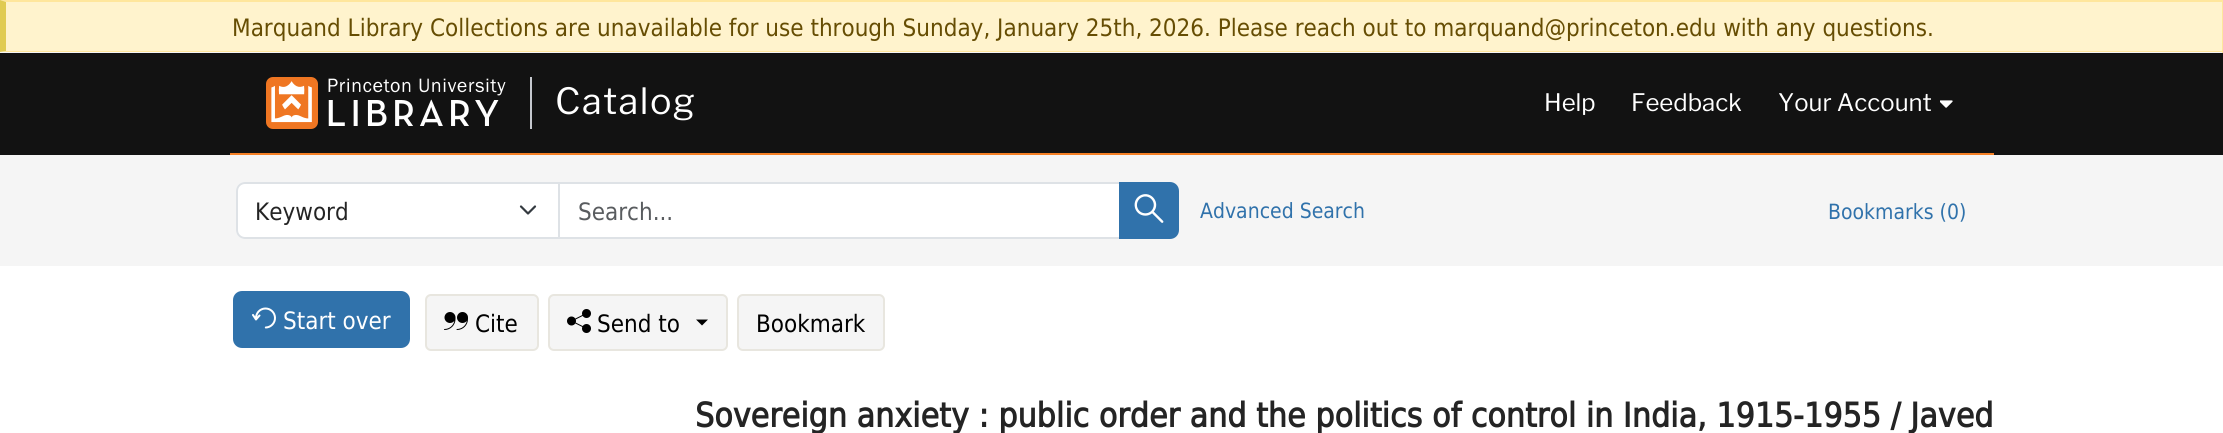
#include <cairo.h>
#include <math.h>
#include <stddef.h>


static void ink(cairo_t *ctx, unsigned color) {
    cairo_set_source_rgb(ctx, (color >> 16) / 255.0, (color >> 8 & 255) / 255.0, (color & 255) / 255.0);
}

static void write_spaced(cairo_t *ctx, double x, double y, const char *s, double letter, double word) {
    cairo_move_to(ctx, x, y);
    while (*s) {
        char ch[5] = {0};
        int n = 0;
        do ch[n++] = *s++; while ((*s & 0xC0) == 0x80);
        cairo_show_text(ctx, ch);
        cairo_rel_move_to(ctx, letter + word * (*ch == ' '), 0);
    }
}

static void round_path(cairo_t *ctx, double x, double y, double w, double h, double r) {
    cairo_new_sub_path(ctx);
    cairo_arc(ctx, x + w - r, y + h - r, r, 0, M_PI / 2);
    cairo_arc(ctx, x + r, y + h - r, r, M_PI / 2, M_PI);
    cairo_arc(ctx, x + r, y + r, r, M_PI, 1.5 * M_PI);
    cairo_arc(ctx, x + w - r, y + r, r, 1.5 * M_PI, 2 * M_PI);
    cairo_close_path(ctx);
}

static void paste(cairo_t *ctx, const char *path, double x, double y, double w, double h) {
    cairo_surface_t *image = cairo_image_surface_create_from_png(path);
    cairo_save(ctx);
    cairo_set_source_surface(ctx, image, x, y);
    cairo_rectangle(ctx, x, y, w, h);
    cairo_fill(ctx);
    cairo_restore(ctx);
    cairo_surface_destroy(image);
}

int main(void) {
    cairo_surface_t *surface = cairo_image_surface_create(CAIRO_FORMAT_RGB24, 2223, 433);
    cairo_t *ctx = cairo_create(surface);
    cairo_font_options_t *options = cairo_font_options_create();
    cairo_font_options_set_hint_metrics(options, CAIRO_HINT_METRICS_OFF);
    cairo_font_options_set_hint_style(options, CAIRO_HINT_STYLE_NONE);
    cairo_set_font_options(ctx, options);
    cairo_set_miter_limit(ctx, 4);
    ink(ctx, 0xF5F5F5);
    cairo_paint(ctx);
    ink(ctx, 0xFFF3CD);
    cairo_rectangle(ctx, 6, 2, 2216, 49);
    cairo_fill(ctx);
    ink(ctx, 0xFFE69C);
    cairo_new_path(ctx);
    cairo_move_to(ctx, 0, 0);
    cairo_line_to(ctx, 2223, 0);
    cairo_line_to(ctx, 2222, 2);
    cairo_line_to(ctx, 6, 2);
    cairo_close_path(ctx);
    cairo_fill(ctx);
    cairo_rectangle(ctx, 2222, 0, 1, 53);
    cairo_fill(ctx);
    cairo_new_path(ctx);
    cairo_move_to(ctx, 2223, 52);
    cairo_line_to(ctx, 0, 52);
    cairo_line_to(ctx, 6, 51);
    cairo_line_to(ctx, 2222, 51);
    cairo_close_path(ctx);
    cairo_fill(ctx);
    ink(ctx, 0xE0CB52);
    cairo_new_path(ctx);
    cairo_move_to(ctx, 0, 52);
    cairo_line_to(ctx, 0, 0);
    cairo_line_to(ctx, 6, 2);
    cairo_line_to(ctx, 6, 51);
    cairo_close_path(ctx);
    cairo_fill(ctx);
    cairo_select_font_face(ctx, "DejaVu Sans", CAIRO_FONT_SLANT_NORMAL, CAIRO_FONT_WEIGHT_NORMAL);
    cairo_set_font_size(ctx, 24);
    ink(ctx, 0x664D03);
    cairo_move_to(ctx, 232, 36);
    cairo_show_text(ctx, "Marquand Library Collections are unavailable for use through Sunday, January 25th, 2026. Please reach out to marquand@princeton.edu with any questions.");
    ink(ctx, 0x121212);
    cairo_rectangle(ctx, 0, 53, 2223, 102);
    cairo_fill(ctx);
    ink(ctx, 0xF58025);
    cairo_rectangle(ctx, 230, 153, 1764, 2);
    cairo_fill(ctx);
    paste(ctx, "media/1.png", 266, 77, 240, 52);
    ink(ctx, 0xC5C8CE);
    cairo_rectangle(ctx, 530, 77, 2, 52);
    cairo_fill(ctx);
    cairo_select_font_face(ctx, "Libre Franklin", CAIRO_FONT_SLANT_NORMAL, CAIRO_FONT_WEIGHT_NORMAL);
    cairo_set_font_size(ctx, 36);
    ink(ctx, 0xFFFFFF);
    write_spaced(ctx, 555, 114, "Catalog", 1.5, 0);
    cairo_set_font_size(ctx, 24);
    cairo_move_to(ctx, 1544, 111);
    cairo_show_text(ctx, "Help");
    cairo_move_to(ctx, 1631, 111);
    cairo_show_text(ctx, "Feedback");
    paste(ctx, "media/2.png", 1940, 100, 13, 8);
    cairo_move_to(ctx, 1778, 111);
    cairo_show_text(ctx, "Your Account");
    cairo_rectangle(ctx, 559, 183, 561, 55);
    cairo_fill_preserve(ctx);
    ink(ctx, 0xDEE2E6);
    cairo_stroke(ctx);
    ink(ctx, 0xFFFFFF);
    cairo_new_path(ctx);
    cairo_move_to(ctx, 245, 182);
    cairo_line_to(ctx, 560, 182);
    cairo_line_to(ctx, 560, 239);
    cairo_line_to(ctx, 245, 239);
    cairo_curve_to(ctx, 240, 239, 236, 235, 236, 230);
    cairo_line_to(ctx, 236, 191);
    cairo_curve_to(ctx, 236, 186, 240, 182, 245, 182);
    cairo_close_path(ctx);
    cairo_fill(ctx);
    cairo_new_path(ctx);
    cairo_move_to(ctx, 521, 206.5);
    cairo_line_to(ctx, 528, 213.5);
    cairo_line_to(ctx, 535, 206.5);
    ink(ctx, 0x343A40);
    cairo_set_line_width(ctx, 2.2);
    cairo_set_line_cap(ctx, CAIRO_LINE_CAP_ROUND);
    cairo_set_line_join(ctx, CAIRO_LINE_JOIN_ROUND);
    cairo_stroke(ctx);
    cairo_new_path(ctx);
    cairo_move_to(ctx, 245, 183);
    cairo_line_to(ctx, 559, 183);
    cairo_line_to(ctx, 559, 238);
    cairo_line_to(ctx, 245, 238);
    cairo_curve_to(ctx, 240.5, 238, 237, 234.5, 237, 230);
    cairo_line_to(ctx, 237, 191);
    cairo_curve_to(ctx, 237, 186.5, 240.5, 183, 245, 183);
    cairo_close_path(ctx);
    ink(ctx, 0xDEE2E6);
    cairo_set_line_width(ctx, 2);
    cairo_set_line_cap(ctx, CAIRO_LINE_CAP_BUTT);
    cairo_set_line_join(ctx, CAIRO_LINE_JOIN_MITER);
    cairo_stroke(ctx);
    cairo_select_font_face(ctx, "DejaVu Sans", CAIRO_FONT_SLANT_NORMAL, CAIRO_FONT_WEIGHT_NORMAL);
    ink(ctx, 0x242424);
    cairo_move_to(ctx, 255, 220);
    cairo_show_text(ctx, "Keyword");
    ink(ctx, 0x595C5F);
    cairo_move_to(ctx, 578, 220);
    cairo_show_text(ctx, "Search...");
    ink(ctx, 0x3072AB);
    cairo_new_path(ctx);
    cairo_move_to(ctx, 1120, 183);
    cairo_line_to(ctx, 1170, 183);
    cairo_curve_to(ctx, 1174.5, 183, 1178, 186.5, 1178, 191);
    cairo_line_to(ctx, 1178, 230);
    cairo_curve_to(ctx, 1178, 234.5, 1174.5, 238, 1170, 238);
    cairo_line_to(ctx, 1120, 238);
    cairo_close_path(ctx);
    cairo_fill_preserve(ctx);
    cairo_stroke(ctx);
    paste(ctx, "media/3.png", 1134, 194, 30, 29);
    cairo_set_font_size(ctx, 21);
    cairo_move_to(ctx, 1200, 218);
    cairo_show_text(ctx, "Advanced Search");
    cairo_move_to(ctx, 1828, 219);
    cairo_show_text(ctx, "Bookmarks (0)");
    ink(ctx, 0xFFFFFF);
    cairo_rectangle(ctx, 0, 266, 2223, 167);
    cairo_fill(ctx);
    ink(ctx, 0x3072AB);
    round_path(ctx, 234, 292, 175, 55, 8);
    cairo_fill_preserve(ctx);
    cairo_stroke(ctx);
    paste(ctx, "media/4.png", 252, 307, 24, 22);
    cairo_set_font_size(ctx, 24);
    ink(ctx, 0xFFFFFF);
    cairo_move_to(ctx, 283, 329);
    cairo_show_text(ctx, "Start over");
    ink(ctx, 0xF5F5F5);
    round_path(ctx, 426, 295, 112, 55, 5);
    cairo_fill_preserve(ctx);
    ink(ctx, 0xE8E6DF);
    cairo_stroke(ctx);
    paste(ctx, "media/5.png", 444, 312, 24, 18);
    ink(ctx, 0x000000);
    cairo_move_to(ctx, 475, 332);
    cairo_show_text(ctx, "Cite");
    ink(ctx, 0xF5F5F5);
    round_path(ctx, 549, 295, 178, 55, 5);
    cairo_fill_preserve(ctx);
    ink(ctx, 0xE8E6DF);
    cairo_stroke(ctx);
    paste(ctx, "media/6.png", 567, 309, 24, 24);
    ink(ctx, 0x000000);
    cairo_move_to(ctx, 597, 332);
    cairo_show_text(ctx, "Send to");
    cairo_new_path(ctx);
    cairo_move_to(ctx, 696, 319.5);
    cairo_line_to(ctx, 708, 319.5);
    cairo_line_to(ctx, 702, 325.5);
    cairo_close_path(ctx);
    cairo_fill(ctx);
    ink(ctx, 0xF5F5F5);
    round_path(ctx, 738, 295, 146, 55, 5);
    cairo_fill_preserve(ctx);
    ink(ctx, 0xE8E6DF);
    cairo_stroke(ctx);
    ink(ctx, 0x000000);
    cairo_move_to(ctx, 756, 332);
    cairo_show_text(ctx, "Bookmark");
    cairo_select_font_face(ctx, "DejaVu Sans", CAIRO_FONT_SLANT_NORMAL, CAIRO_FONT_WEIGHT_BOLD);
    cairo_set_font_size(ctx, 33.6);
    ink(ctx, 0x242424);
    cairo_move_to(ctx, 695, 427);
    cairo_show_text(ctx, "Sovereign anxiety : public order and the politics of control in India, 1915-1955 / Javed");
    cairo_surface_write_to_png(surface, "image.png");
    cairo_font_options_destroy(options);
    cairo_destroy(ctx);
    cairo_surface_destroy(surface);
    return 0;
}
